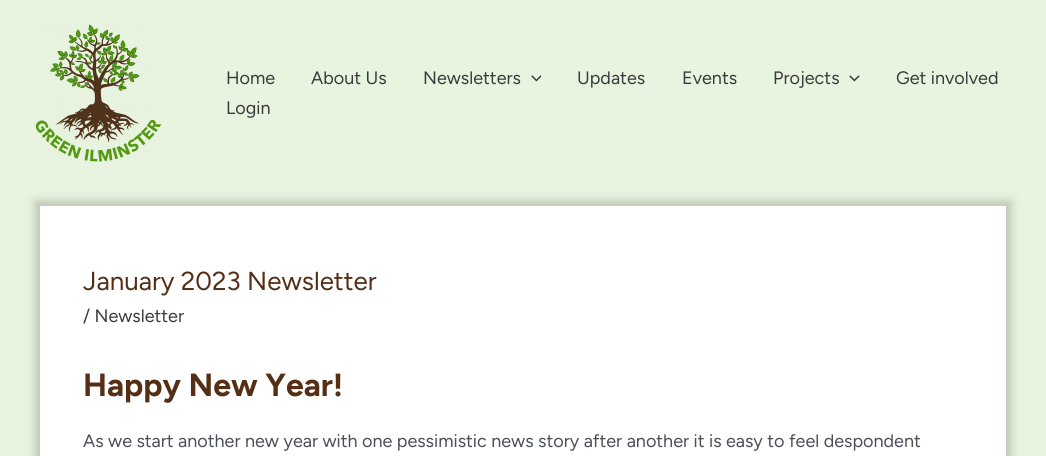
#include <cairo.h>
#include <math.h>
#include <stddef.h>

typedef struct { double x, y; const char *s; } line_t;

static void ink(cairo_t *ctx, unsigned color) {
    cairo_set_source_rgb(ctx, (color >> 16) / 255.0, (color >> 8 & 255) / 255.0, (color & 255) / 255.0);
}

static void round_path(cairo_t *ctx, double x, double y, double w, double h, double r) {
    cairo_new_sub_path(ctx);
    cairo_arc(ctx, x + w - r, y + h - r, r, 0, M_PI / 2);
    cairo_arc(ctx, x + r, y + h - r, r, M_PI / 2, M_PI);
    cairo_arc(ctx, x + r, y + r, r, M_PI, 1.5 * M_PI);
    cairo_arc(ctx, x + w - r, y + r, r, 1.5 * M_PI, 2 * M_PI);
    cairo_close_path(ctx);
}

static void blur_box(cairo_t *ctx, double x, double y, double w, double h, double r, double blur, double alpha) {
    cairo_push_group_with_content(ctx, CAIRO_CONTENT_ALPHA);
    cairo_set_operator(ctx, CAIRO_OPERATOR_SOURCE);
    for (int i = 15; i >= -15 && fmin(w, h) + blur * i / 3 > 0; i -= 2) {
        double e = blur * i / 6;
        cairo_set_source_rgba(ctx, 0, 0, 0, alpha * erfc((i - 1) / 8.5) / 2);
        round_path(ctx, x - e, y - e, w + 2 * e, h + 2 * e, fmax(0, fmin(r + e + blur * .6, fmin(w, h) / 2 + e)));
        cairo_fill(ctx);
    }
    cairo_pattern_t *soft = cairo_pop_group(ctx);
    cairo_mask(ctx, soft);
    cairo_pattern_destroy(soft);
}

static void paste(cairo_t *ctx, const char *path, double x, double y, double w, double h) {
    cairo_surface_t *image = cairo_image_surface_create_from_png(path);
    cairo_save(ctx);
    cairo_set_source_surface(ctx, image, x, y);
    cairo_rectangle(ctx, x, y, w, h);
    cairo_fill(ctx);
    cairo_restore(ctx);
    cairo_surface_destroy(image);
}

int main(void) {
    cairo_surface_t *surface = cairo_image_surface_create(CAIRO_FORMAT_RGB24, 1046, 456);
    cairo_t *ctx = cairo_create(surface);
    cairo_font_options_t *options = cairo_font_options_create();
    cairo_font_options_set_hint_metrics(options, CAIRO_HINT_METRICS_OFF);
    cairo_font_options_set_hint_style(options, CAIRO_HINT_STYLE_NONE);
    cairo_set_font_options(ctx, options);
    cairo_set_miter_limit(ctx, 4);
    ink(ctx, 0xE9F4E0);
    cairo_paint(ctx);
    paste(ctx, "media/1.png", 35, 24, 127, 138);
    cairo_select_font_face(ctx, "Figtree", CAIRO_FONT_SLANT_NORMAL, CAIRO_FONT_WEIGHT_NORMAL);
    cairo_set_font_size(ctx, 18);
    ink(ctx, 0x3A3A3A);
    {
        static const line_t items[] = {
            {226, 84, "Home"},
            {311, 84, "About Us"},
            {423, 84, "Newsletters"},
        };
        for (size_t i = 0; i < sizeof items / sizeof *items; i++) {
            cairo_move_to(ctx, items[i].x, items[i].y);
            cairo_show_text(ctx, items[i].s);
        }
    }
    paste(ctx, "media/2.png", 531, 75, 10, 7);
    {
        static const line_t items[] = {
            {577, 84, "Updates"},
            {682, 84, "Events"},
            {773, 84, "Projects"},
        };
        for (size_t i = 0; i < sizeof items / sizeof *items; i++) {
            cairo_move_to(ctx, items[i].x, items[i].y);
            cairo_show_text(ctx, items[i].s);
        }
    }
    paste(ctx, "media/3.png", 849, 75, 11, 7);
    cairo_move_to(ctx, 896, 84);
    cairo_show_text(ctx, "Get involved");
    cairo_move_to(ctx, 226, 114);
    cairo_show_text(ctx, "Login");
    ink(ctx, 0x000000);
    blur_box(ctx, 35, 201, 976, 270, 0, 5, 0.2);
    ink(ctx, 0xFFFFFF);
    cairo_rectangle(ctx, 40, 206, 966, 250);
    cairo_fill(ctx);
    cairo_set_font_size(ctx, 26);
    ink(ctx, 0x542F16);
    cairo_move_to(ctx, 83, 290);
    cairo_show_text(ctx, "January 2023 Newsletter");
    cairo_set_font_size(ctx, 18);
    ink(ctx, 0x3A3A3A);
    cairo_move_to(ctx, 83, 322);
    cairo_show_text(ctx, "/ Newsletter");
    cairo_select_font_face(ctx, "Figtree", CAIRO_FONT_SLANT_NORMAL, CAIRO_FONT_WEIGHT_BOLD);
    cairo_set_font_size(ctx, 32);
    ink(ctx, 0x542F16);
    cairo_move_to(ctx, 83, 396);
    cairo_show_text(ctx, "Happy New Year!");
    cairo_select_font_face(ctx, "Figtree", CAIRO_FONT_SLANT_NORMAL, CAIRO_FONT_WEIGHT_NORMAL);
    cairo_set_font_size(ctx, 18);
    ink(ctx, 0x4B4F58);
    cairo_move_to(ctx, 83, 447);
    cairo_show_text(ctx, "As we start another new year with one pessimistic news story after another it is easy to feel despondent");
    cairo_surface_write_to_png(surface, "image.png");
    cairo_font_options_destroy(options);
    cairo_destroy(ctx);
    cairo_surface_destroy(surface);
    return 0;
}
